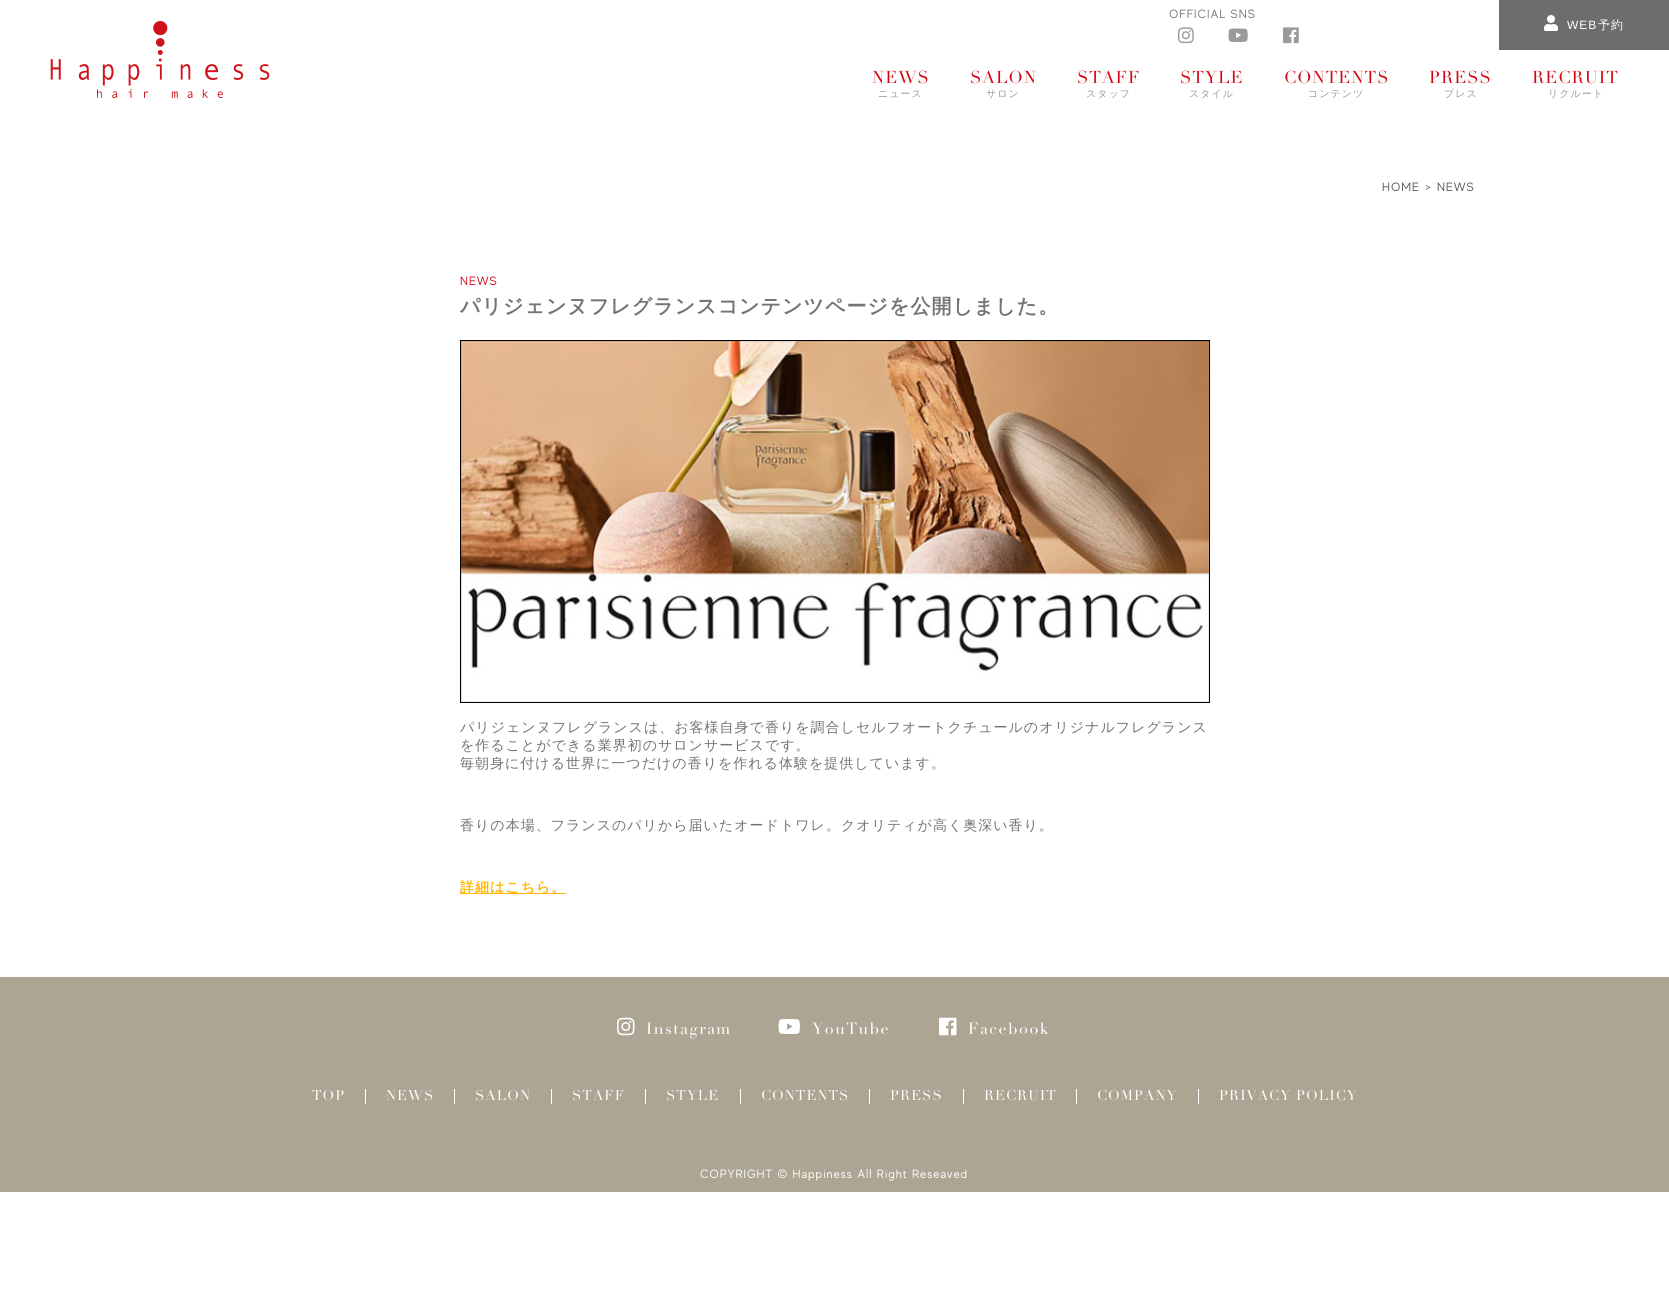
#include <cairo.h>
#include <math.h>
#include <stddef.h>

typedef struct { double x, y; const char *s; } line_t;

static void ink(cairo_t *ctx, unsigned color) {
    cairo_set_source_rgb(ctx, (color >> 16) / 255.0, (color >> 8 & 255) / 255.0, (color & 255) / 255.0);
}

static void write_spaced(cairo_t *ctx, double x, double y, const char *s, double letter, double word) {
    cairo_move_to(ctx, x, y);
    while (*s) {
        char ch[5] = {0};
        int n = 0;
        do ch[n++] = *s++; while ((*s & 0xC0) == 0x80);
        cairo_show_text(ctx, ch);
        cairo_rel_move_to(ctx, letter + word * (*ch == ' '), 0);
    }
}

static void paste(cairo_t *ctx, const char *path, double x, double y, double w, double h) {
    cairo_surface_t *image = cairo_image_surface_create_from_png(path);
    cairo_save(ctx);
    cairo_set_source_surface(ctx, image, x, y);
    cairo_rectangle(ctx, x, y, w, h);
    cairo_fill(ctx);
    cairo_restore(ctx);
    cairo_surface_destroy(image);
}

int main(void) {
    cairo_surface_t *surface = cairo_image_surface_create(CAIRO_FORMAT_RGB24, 1669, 1306);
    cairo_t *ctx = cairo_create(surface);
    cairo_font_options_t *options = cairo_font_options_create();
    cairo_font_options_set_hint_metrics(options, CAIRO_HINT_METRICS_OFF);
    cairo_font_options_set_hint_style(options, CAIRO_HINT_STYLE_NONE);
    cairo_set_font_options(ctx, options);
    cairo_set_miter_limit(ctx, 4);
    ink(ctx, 0xFFFFFF);
    cairo_paint(ctx);
    cairo_select_font_face(ctx, "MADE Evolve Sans", CAIRO_FONT_SLANT_NORMAL, CAIRO_FONT_WEIGHT_NORMAL);
    cairo_set_font_size(ctx, 12);
    ink(ctx, 0x747474);
    write_spaced(ctx, 1169, 18, "OFFICIAL SNS", 1, 0);
    paste(ctx, "media/1.png", 1178, 27, 16, 17);
    paste(ctx, "media/2.png", 1228, 28, 20, 14);
    paste(ctx, "media/3.png", 1283, 27, 16, 17);
    paste(ctx, "media/4.png", 50, 21, 220, 77);
    ink(ctx, 0x6D6D6D);
    cairo_rectangle(ctx, 1499, 0, 170, 50);
    cairo_fill(ctx);
    paste(ctx, "media/5.png", 1544, 15, 14, 16);
    cairo_select_font_face(ctx, "Liberation Sans", CAIRO_FONT_SLANT_NORMAL, CAIRO_FONT_WEIGHT_NORMAL);
    ink(ctx, 0xFFFFFF);
    write_spaced(ctx, 1567, 29, "WEB", 1, 0);
    cairo_select_font_face(ctx, "WenQuanYi Zen Hei Medium", CAIRO_FONT_SLANT_NORMAL, CAIRO_FONT_WEIGHT_NORMAL);
    write_spaced(ctx, 1598, 29, "予約", 1, 0);
    cairo_select_font_face(ctx, "Didot", CAIRO_FONT_SLANT_NORMAL, CAIRO_FONT_WEIGHT_NORMAL);
    cairo_set_font_size(ctx, 17);
    ink(ctx, 0xCE0611);
    write_spaced(ctx, 872, 83, "NEWS", 1, 0);
    cairo_select_font_face(ctx, "WenQuanYi Zen Hei Medium", CAIRO_FONT_SLANT_NORMAL, CAIRO_FONT_WEIGHT_NORMAL);
    cairo_set_font_size(ctx, 10);
    ink(ctx, 0x999999);
    write_spaced(ctx, 878, 97, "ニュース", 1, 0);
    cairo_select_font_face(ctx, "Didot", CAIRO_FONT_SLANT_NORMAL, CAIRO_FONT_WEIGHT_NORMAL);
    cairo_set_font_size(ctx, 17);
    ink(ctx, 0xCE0611);
    write_spaced(ctx, 970, 83, "SALON", 1, 0);
    cairo_select_font_face(ctx, "WenQuanYi Zen Hei Medium", CAIRO_FONT_SLANT_NORMAL, CAIRO_FONT_WEIGHT_NORMAL);
    cairo_set_font_size(ctx, 10);
    ink(ctx, 0x999999);
    write_spaced(ctx, 986, 97, "サロン", 1, 0);
    cairo_select_font_face(ctx, "Didot", CAIRO_FONT_SLANT_NORMAL, CAIRO_FONT_WEIGHT_NORMAL);
    cairo_set_font_size(ctx, 17);
    ink(ctx, 0xCE0611);
    write_spaced(ctx, 1077, 83, "STAFF", 1, 0);
    cairo_select_font_face(ctx, "WenQuanYi Zen Hei Medium", CAIRO_FONT_SLANT_NORMAL, CAIRO_FONT_WEIGHT_NORMAL);
    cairo_set_font_size(ctx, 10);
    ink(ctx, 0x999999);
    write_spaced(ctx, 1086, 97, "スタッフ", 1, 0);
    cairo_select_font_face(ctx, "Didot", CAIRO_FONT_SLANT_NORMAL, CAIRO_FONT_WEIGHT_NORMAL);
    cairo_set_font_size(ctx, 17);
    ink(ctx, 0xCE0611);
    write_spaced(ctx, 1180, 83, "STYLE", 1, 0);
    cairo_select_font_face(ctx, "WenQuanYi Zen Hei Medium", CAIRO_FONT_SLANT_NORMAL, CAIRO_FONT_WEIGHT_NORMAL);
    cairo_set_font_size(ctx, 10);
    ink(ctx, 0x999999);
    write_spaced(ctx, 1189, 97, "スタイル", 1, 0);
    cairo_select_font_face(ctx, "Didot", CAIRO_FONT_SLANT_NORMAL, CAIRO_FONT_WEIGHT_NORMAL);
    cairo_set_font_size(ctx, 17);
    ink(ctx, 0xCE0611);
    write_spaced(ctx, 1284, 83, "CONTENTS", 1, 0);
    cairo_select_font_face(ctx, "WenQuanYi Zen Hei Medium", CAIRO_FONT_SLANT_NORMAL, CAIRO_FONT_WEIGHT_NORMAL);
    cairo_set_font_size(ctx, 10);
    ink(ctx, 0x999999);
    write_spaced(ctx, 1308, 97, "コンテンツ", 1, 0);
    cairo_select_font_face(ctx, "Didot", CAIRO_FONT_SLANT_NORMAL, CAIRO_FONT_WEIGHT_NORMAL);
    cairo_set_font_size(ctx, 17);
    ink(ctx, 0xCE0611);
    write_spaced(ctx, 1429, 83, "PRESS", 1, 0);
    cairo_select_font_face(ctx, "WenQuanYi Zen Hei Medium", CAIRO_FONT_SLANT_NORMAL, CAIRO_FONT_WEIGHT_NORMAL);
    cairo_set_font_size(ctx, 10);
    ink(ctx, 0x999999);
    write_spaced(ctx, 1444, 97, "プレス", 1, 0);
    cairo_select_font_face(ctx, "Didot", CAIRO_FONT_SLANT_NORMAL, CAIRO_FONT_WEIGHT_NORMAL);
    cairo_set_font_size(ctx, 17);
    ink(ctx, 0xCE0611);
    write_spaced(ctx, 1532, 83, "RECRUIT", 1, 0);
    cairo_select_font_face(ctx, "WenQuanYi Zen Hei Medium", CAIRO_FONT_SLANT_NORMAL, CAIRO_FONT_WEIGHT_NORMAL);
    cairo_set_font_size(ctx, 10);
    ink(ctx, 0x999999);
    write_spaced(ctx, 1548, 97, "リクルート", 1, 0);
    cairo_select_font_face(ctx, "MADE Evolve Sans", CAIRO_FONT_SLANT_NORMAL, CAIRO_FONT_WEIGHT_NORMAL);
    cairo_set_font_size(ctx, 12);
    ink(ctx, 0x545454);
    write_spaced(ctx, 1382, 191, "HOME", 1, 0);
    ink(ctx, 0x747474);
    write_spaced(ctx, 1425, 191, ">", 1, 0);
    ink(ctx, 0x545454);
    write_spaced(ctx, 1437, 191, "NEWS", 1, 0);
    ink(ctx, 0xCE0611);
    write_spaced(ctx, 460, 285, "NEWS", 1, 0);
    cairo_select_font_face(ctx, "WenQuanYi Zen Hei", CAIRO_FONT_SLANT_NORMAL, CAIRO_FONT_WEIGHT_BOLD);
    cairo_set_font_size(ctx, 20);
    ink(ctx, 0x747474);
    write_spaced(ctx, 460, 313, "パリジェンヌフレグランスコンテンツページを公開しました。", 1, 0);
    paste(ctx, "media/6.png", 460, 340, 750, 363);
    cairo_select_font_face(ctx, "WenQuanYi Zen Hei Medium", CAIRO_FONT_SLANT_NORMAL, CAIRO_FONT_WEIGHT_NORMAL);
    cairo_set_font_size(ctx, 14);
    {
        static const line_t items[] = {
            {460, 732, "パリジェンヌフレグランスは、お客様自身で香りを調合しセルフオートクチュールのオリジナルフレグランス"},
            {460, 750, "を作ることができる業界初のサロンサービスです。"},
            {460, 768, "毎朝身に付ける世界に一つだけの香りを作れる体験を提供しています。"},
            {460, 830, "香りの本場、フランスのパリから届いたオードトワレ。クオリティが高く奥深い香り。"},
        };
        for (size_t i = 0; i < sizeof items / sizeof *items; i++) {
            write_spaced(ctx, items[i].x, items[i].y, items[i].s, 1, 0);
        }
    }
    ink(ctx, 0xFFB600);
    cairo_rectangle(ctx, 460, 893, 106, 1);
    cairo_fill(ctx);
    cairo_select_font_face(ctx, "WenQuanYi Zen Hei", CAIRO_FONT_SLANT_NORMAL, CAIRO_FONT_WEIGHT_BOLD);
    write_spaced(ctx, 460, 892, "詳細はこちら。", 1, 0);
    ink(ctx, 0xACA593);
    cairo_rectangle(ctx, 0, 977, 1669, 215);
    cairo_fill(ctx);
    paste(ctx, "media/7.png", 617, 1017, 18, 19);
    cairo_select_font_face(ctx, "Didot", CAIRO_FONT_SLANT_NORMAL, CAIRO_FONT_WEIGHT_NORMAL);
    cairo_set_font_size(ctx, 16);
    ink(ctx, 0xFFFFFF);
    write_spaced(ctx, 646, 1034, "Instagram", 1.5, 0);
    paste(ctx, "media/8.png", 778, 1019, 22, 15);
    write_spaced(ctx, 812, 1034, "YouTube", 1.5, 0);
    paste(ctx, "media/9.png", 939, 1017, 18, 19);
    write_spaced(ctx, 968, 1034, "Facebook", 1.5, 0);
    cairo_rectangle(ctx, 365, 1089, 1, 15);
    cairo_fill(ctx);
    cairo_set_font_size(ctx, 14);
    write_spaced(ctx, 312, 1100, "TOP", 1, 0);
    cairo_rectangle(ctx, 454, 1089, 1, 15);
    cairo_fill(ctx);
    write_spaced(ctx, 386, 1100, "NEWS", 1, 0);
    cairo_rectangle(ctx, 551, 1089, 1, 15);
    cairo_fill(ctx);
    write_spaced(ctx, 475, 1100, "SALON", 1, 0);
    cairo_rectangle(ctx, 645, 1089, 1, 15);
    cairo_fill(ctx);
    write_spaced(ctx, 572, 1100, "STAFF", 1, 0);
    cairo_rectangle(ctx, 740, 1089, 1, 15);
    cairo_fill(ctx);
    write_spaced(ctx, 666, 1100, "STYLE", 1, 0);
    cairo_rectangle(ctx, 869, 1089, 1, 15);
    cairo_fill(ctx);
    write_spaced(ctx, 761, 1100, "CONTENTS", 1, 0);
    cairo_rectangle(ctx, 963, 1089, 1, 15);
    cairo_fill(ctx);
    write_spaced(ctx, 890, 1100, "PRESS", 1, 0);
    cairo_rectangle(ctx, 1076, 1089, 1, 15);
    cairo_fill(ctx);
    write_spaced(ctx, 984, 1100, "RECRUIT", 1, 0);
    cairo_rectangle(ctx, 1198, 1089, 1, 15);
    cairo_fill(ctx);
    write_spaced(ctx, 1097, 1100, "COMPANY", 1, 0);
    write_spaced(ctx, 1219, 1100, "PRIVACY POLICY", 1, 0);
    cairo_select_font_face(ctx, "MADE Evolve Sans", CAIRO_FONT_SLANT_NORMAL, CAIRO_FONT_WEIGHT_NORMAL);
    cairo_set_font_size(ctx, 12);
    write_spaced(ctx, 700, 1178, "COPYRIGHT © Happiness All Right Reseaved", 1, 0);
    cairo_surface_write_to_png(surface, "image.png");
    cairo_font_options_destroy(options);
    cairo_destroy(ctx);
    cairo_surface_destroy(surface);
    return 0;
}
